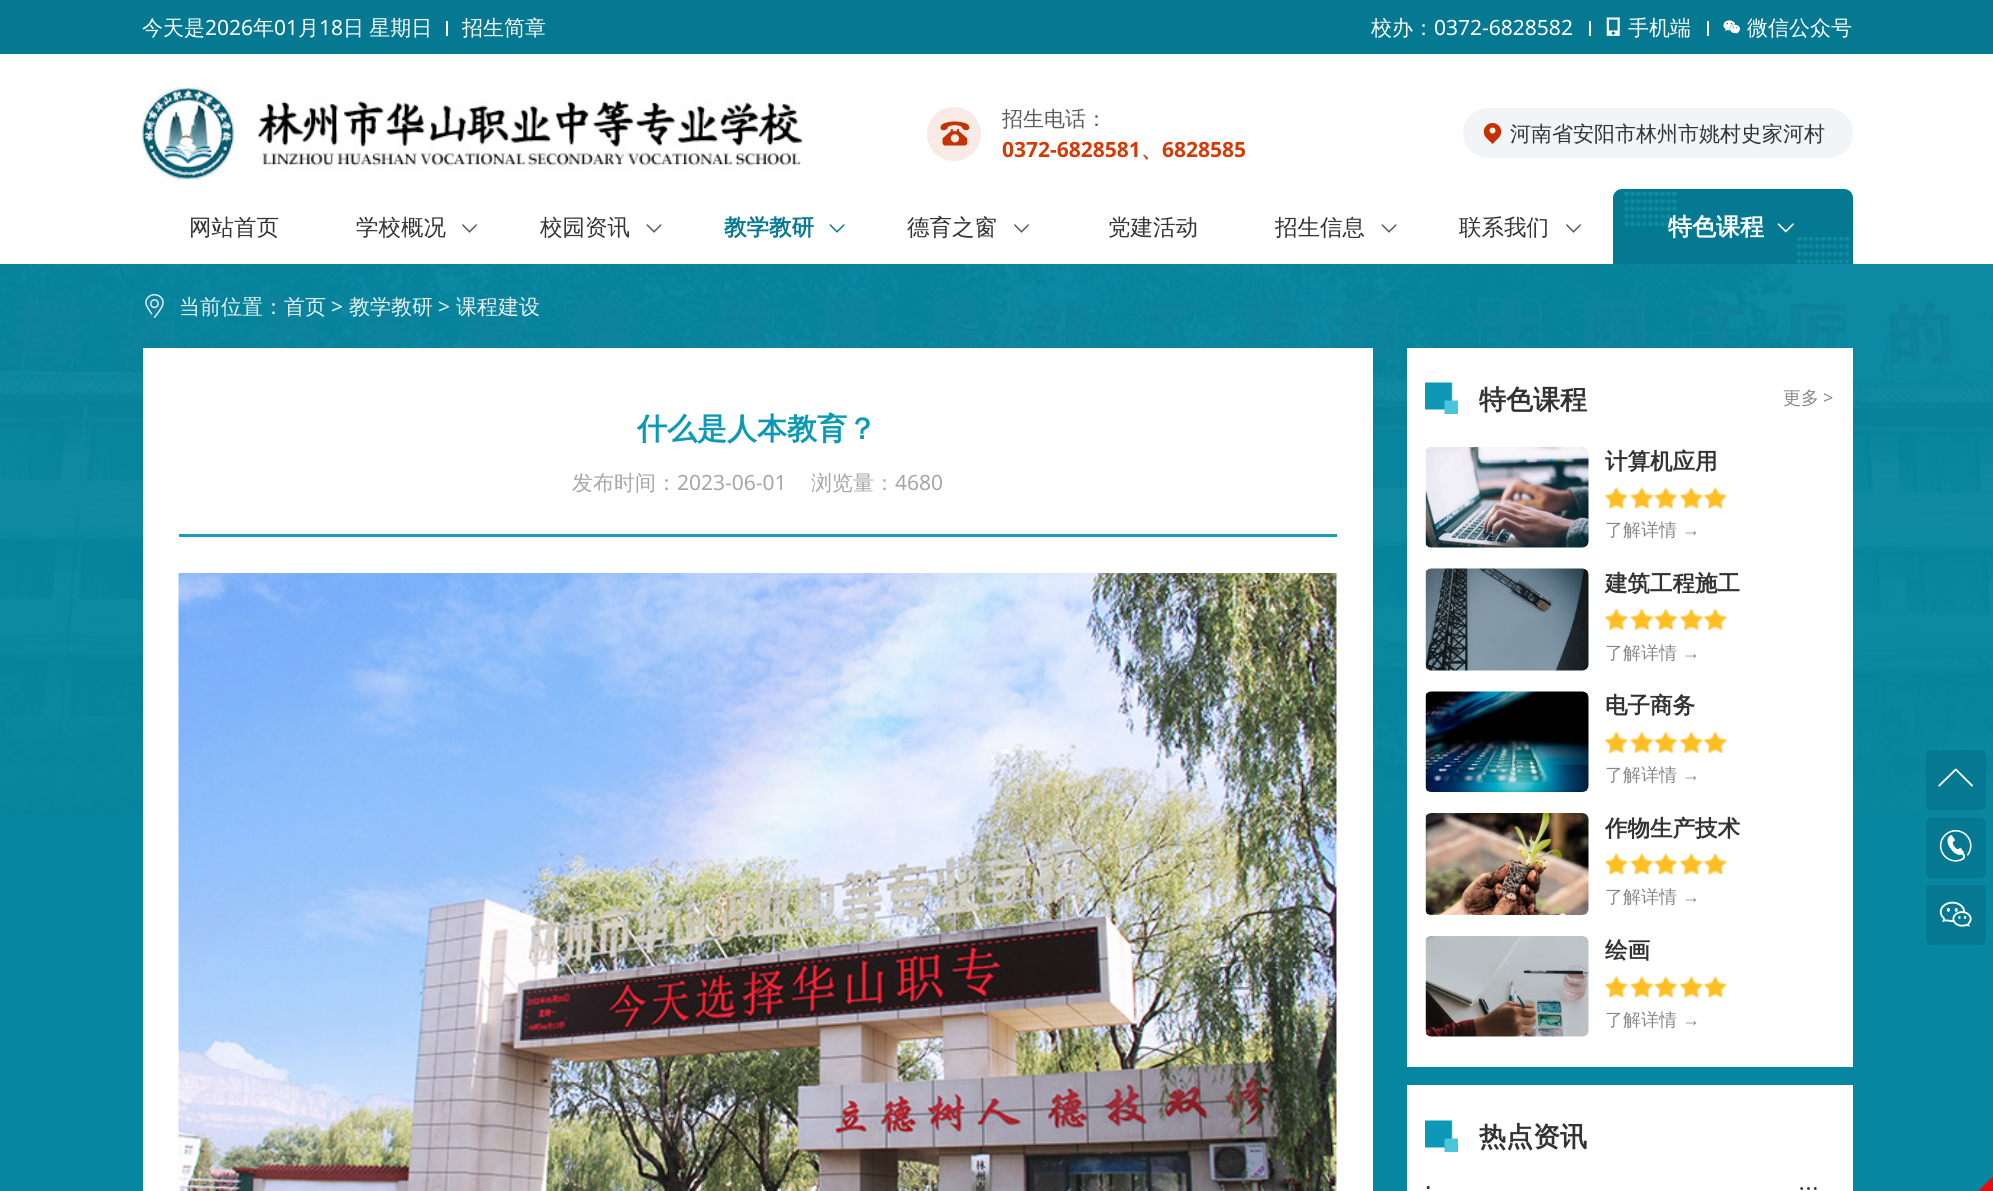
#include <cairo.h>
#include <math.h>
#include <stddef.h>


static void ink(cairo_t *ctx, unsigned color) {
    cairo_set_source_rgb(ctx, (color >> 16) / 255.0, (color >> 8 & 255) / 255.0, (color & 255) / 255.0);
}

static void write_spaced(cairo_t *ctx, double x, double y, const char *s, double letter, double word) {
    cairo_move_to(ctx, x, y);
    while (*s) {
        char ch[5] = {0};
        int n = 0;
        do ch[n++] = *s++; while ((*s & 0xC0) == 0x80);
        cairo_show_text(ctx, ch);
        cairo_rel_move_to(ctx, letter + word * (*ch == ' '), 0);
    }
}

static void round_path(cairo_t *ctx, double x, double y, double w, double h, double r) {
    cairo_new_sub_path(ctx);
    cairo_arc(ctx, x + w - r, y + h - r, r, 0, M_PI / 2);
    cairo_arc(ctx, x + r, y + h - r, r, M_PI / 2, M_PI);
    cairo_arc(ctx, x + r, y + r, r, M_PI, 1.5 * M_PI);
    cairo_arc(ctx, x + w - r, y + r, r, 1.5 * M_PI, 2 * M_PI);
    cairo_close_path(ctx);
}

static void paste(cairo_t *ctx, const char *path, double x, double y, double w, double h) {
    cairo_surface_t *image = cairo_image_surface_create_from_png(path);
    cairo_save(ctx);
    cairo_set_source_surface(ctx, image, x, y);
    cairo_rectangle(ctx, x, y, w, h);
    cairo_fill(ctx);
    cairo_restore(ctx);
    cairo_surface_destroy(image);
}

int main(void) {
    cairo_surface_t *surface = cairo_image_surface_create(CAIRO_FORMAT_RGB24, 1993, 1191);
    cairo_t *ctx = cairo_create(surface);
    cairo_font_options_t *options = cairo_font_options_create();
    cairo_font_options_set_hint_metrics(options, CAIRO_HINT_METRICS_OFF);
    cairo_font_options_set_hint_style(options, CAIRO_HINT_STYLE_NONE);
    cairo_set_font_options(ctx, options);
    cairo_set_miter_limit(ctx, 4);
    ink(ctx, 0xFFFFFF);
    cairo_paint(ctx);
    ink(ctx, 0x057991);
    cairo_rectangle(ctx, 0, 0, 1993, 54);
    cairo_fill(ctx);
    cairo_select_font_face(ctx, "WenQuanYi Zen Hei Medium", CAIRO_FONT_SLANT_NORMAL, CAIRO_FONT_WEIGHT_NORMAL);
    cairo_set_font_size(ctx, 21);
    ink(ctx, 0xFFFFFF);
    cairo_move_to(ctx, 142, 35);
    cairo_show_text(ctx, "今天是");
    cairo_select_font_face(ctx, "Noto Sans", CAIRO_FONT_SLANT_NORMAL, CAIRO_FONT_WEIGHT_NORMAL);
    cairo_move_to(ctx, 205, 35);
    cairo_show_text(ctx, "2026");
    cairo_select_font_face(ctx, "WenQuanYi Zen Hei Medium", CAIRO_FONT_SLANT_NORMAL, CAIRO_FONT_WEIGHT_NORMAL);
    cairo_move_to(ctx, 253, 35);
    cairo_show_text(ctx, "年");
    cairo_select_font_face(ctx, "Noto Sans", CAIRO_FONT_SLANT_NORMAL, CAIRO_FONT_WEIGHT_NORMAL);
    cairo_move_to(ctx, 274, 35);
    cairo_show_text(ctx, "01");
    cairo_select_font_face(ctx, "WenQuanYi Zen Hei Medium", CAIRO_FONT_SLANT_NORMAL, CAIRO_FONT_WEIGHT_NORMAL);
    cairo_move_to(ctx, 298, 35);
    cairo_show_text(ctx, "月");
    cairo_select_font_face(ctx, "Noto Sans", CAIRO_FONT_SLANT_NORMAL, CAIRO_FONT_WEIGHT_NORMAL);
    cairo_move_to(ctx, 319, 35);
    cairo_show_text(ctx, "18");
    cairo_select_font_face(ctx, "WenQuanYi Zen Hei Medium", CAIRO_FONT_SLANT_NORMAL, CAIRO_FONT_WEIGHT_NORMAL);
    write_spaced(ctx, 343, 35, "日 星期日", 0, -1);
    cairo_rectangle(ctx, 446, 21, 2, 15);
    cairo_fill(ctx);
    cairo_move_to(ctx, 462, 35);
    cairo_show_text(ctx, "招生简章");
    cairo_move_to(ctx, 1371, 35);
    cairo_show_text(ctx, "校办：");
    cairo_select_font_face(ctx, "Noto Sans", CAIRO_FONT_SLANT_NORMAL, CAIRO_FONT_WEIGHT_NORMAL);
    cairo_move_to(ctx, 1434, 35);
    cairo_show_text(ctx, "0372-6828582");
    cairo_rectangle(ctx, 1589, 21, 2, 15);
    cairo_fill(ctx);
    paste(ctx, "media/1.png", 1606, 17, 14, 19);
    cairo_select_font_face(ctx, "WenQuanYi Zen Hei Medium", CAIRO_FONT_SLANT_NORMAL, CAIRO_FONT_WEIGHT_NORMAL);
    cairo_move_to(ctx, 1628, 35);
    cairo_show_text(ctx, "手机端");
    cairo_rectangle(ctx, 1707, 21, 2, 15);
    cairo_fill(ctx);
    paste(ctx, "media/2.png", 1723, 20, 17, 14);
    cairo_move_to(ctx, 1747, 35);
    cairo_show_text(ctx, "微信公众号");
    paste(ctx, "media/3.png", 142, 87, 662, 93);
    ink(ctx, 0xF9EAE5);
    cairo_arc(ctx, 954, 134, 27, 0, 2 * M_PI);
    cairo_fill(ctx);
    paste(ctx, "media/4.png", 940, 121, 30, 25);
    ink(ctx, 0x5C5C5C);
    cairo_move_to(ctx, 1002, 126);
    cairo_show_text(ctx, "招生电话：");
    cairo_select_font_face(ctx, "Noto Sans", CAIRO_FONT_SLANT_NORMAL, CAIRO_FONT_WEIGHT_BOLD);
    ink(ctx, 0xD43A06);
    cairo_move_to(ctx, 1002, 157);
    cairo_show_text(ctx, "0372-6828581");
    cairo_select_font_face(ctx, "WenQuanYi Zen Hei", CAIRO_FONT_SLANT_NORMAL, CAIRO_FONT_WEIGHT_BOLD);
    cairo_move_to(ctx, 1141, 157);
    cairo_show_text(ctx, "、");
    cairo_select_font_face(ctx, "Noto Sans", CAIRO_FONT_SLANT_NORMAL, CAIRO_FONT_WEIGHT_BOLD);
    cairo_move_to(ctx, 1162, 157);
    cairo_show_text(ctx, "6828585");
    ink(ctx, 0xF3F4F7);
    round_path(ctx, 1463, 108, 390, 50, 25);
    cairo_fill(ctx);
    paste(ctx, "media/5.png", 1483, 123, 19, 21);
    cairo_select_font_face(ctx, "WenQuanYi Zen Hei Medium", CAIRO_FONT_SLANT_NORMAL, CAIRO_FONT_WEIGHT_NORMAL);
    ink(ctx, 0x333333);
    cairo_move_to(ctx, 1510, 141);
    cairo_show_text(ctx, "河南省安阳市林州市姚村史家河村");
    cairo_set_font_size(ctx, 22.5);
    cairo_move_to(ctx, 189, 235);
    cairo_show_text(ctx, "网站首页");
    cairo_move_to(ctx, 356, 235);
    cairo_show_text(ctx, "学校概况");
    paste(ctx, "media/6.png", 462, 224, 15, 9);
    cairo_move_to(ctx, 540, 235);
    cairo_show_text(ctx, "校园资讯");
    paste(ctx, "media/7.png", 646, 224, 16, 9);
    cairo_select_font_face(ctx, "WenQuanYi Zen Hei", CAIRO_FONT_SLANT_NORMAL, CAIRO_FONT_WEIGHT_BOLD);
    ink(ctx, 0x057991);
    cairo_move_to(ctx, 724, 235);
    cairo_show_text(ctx, "教学教研");
    paste(ctx, "media/8.png", 829, 224, 16, 9);
    cairo_select_font_face(ctx, "WenQuanYi Zen Hei Medium", CAIRO_FONT_SLANT_NORMAL, CAIRO_FONT_WEIGHT_NORMAL);
    ink(ctx, 0x333333);
    cairo_move_to(ctx, 907, 235);
    cairo_show_text(ctx, "德育之窗");
    paste(ctx, "media/6.png", 1014, 224, 15, 9);
    cairo_move_to(ctx, 1108, 235);
    cairo_show_text(ctx, "党建活动");
    cairo_move_to(ctx, 1275, 235);
    cairo_show_text(ctx, "招生信息");
    paste(ctx, "media/7.png", 1381, 224, 16, 9);
    cairo_move_to(ctx, 1459, 235);
    cairo_show_text(ctx, "联系我们");
    paste(ctx, "media/6.png", 1566, 224, 15, 9);
    ink(ctx, 0x057991);
    cairo_new_path(ctx);
    cairo_move_to(ctx, 1622, 189);
    cairo_line_to(ctx, 1844, 189);
    cairo_curve_to(ctx, 1849, 189, 1853, 193, 1853, 198);
    cairo_line_to(ctx, 1853, 264);
    cairo_line_to(ctx, 1613, 264);
    cairo_line_to(ctx, 1613, 198);
    cairo_curve_to(ctx, 1613, 193, 1617, 189, 1622, 189);
    cairo_close_path(ctx);
    cairo_fill(ctx);
    paste(ctx, "media/9.png", 1624, 192, 53, 35);
    cairo_select_font_face(ctx, "WenQuanYi Zen Hei", CAIRO_FONT_SLANT_NORMAL, CAIRO_FONT_WEIGHT_BOLD);
    cairo_set_font_size(ctx, 24);
    ink(ctx, 0xFFFFFF);
    cairo_move_to(ctx, 1668, 235);
    cairo_show_text(ctx, "特色课程");
    paste(ctx, "media/10.png", 1777, 223, 17, 10);
    paste(ctx, "media/11.png", 1797, 237, 53, 27);
    ink(ctx, 0x0686A0);
    cairo_rectangle(ctx, 0, 816, 1993, 375);
    cairo_fill(ctx);
    paste(ctx, "media/12.png", 0, 264, 1993, 552);
    paste(ctx, "media/13.png", 145, 294, 19, 24);
    cairo_select_font_face(ctx, "WenQuanYi Zen Hei Medium", CAIRO_FONT_SLANT_NORMAL, CAIRO_FONT_WEIGHT_NORMAL);
    cairo_set_font_size(ctx, 21);
    ink(ctx, 0xE6F3F5);
    cairo_move_to(ctx, 179, 314);
    cairo_show_text(ctx, "当前位置：");
    cairo_move_to(ctx, 284, 314);
    cairo_show_text(ctx, "首页");
    cairo_select_font_face(ctx, "Noto Sans", CAIRO_FONT_SLANT_NORMAL, CAIRO_FONT_WEIGHT_NORMAL);
    cairo_move_to(ctx, 331, 314);
    cairo_show_text(ctx, ">");
    cairo_select_font_face(ctx, "WenQuanYi Zen Hei Medium", CAIRO_FONT_SLANT_NORMAL, CAIRO_FONT_WEIGHT_NORMAL);
    cairo_move_to(ctx, 349, 314);
    cairo_show_text(ctx, "教学教研");
    cairo_select_font_face(ctx, "Noto Sans", CAIRO_FONT_SLANT_NORMAL, CAIRO_FONT_WEIGHT_NORMAL);
    cairo_move_to(ctx, 438, 314);
    cairo_show_text(ctx, ">");
    cairo_select_font_face(ctx, "WenQuanYi Zen Hei Medium", CAIRO_FONT_SLANT_NORMAL, CAIRO_FONT_WEIGHT_NORMAL);
    cairo_move_to(ctx, 456, 314);
    cairo_show_text(ctx, "课程建设");
    ink(ctx, 0xFFFFFF);
    cairo_rectangle(ctx, 143, 348, 1230, 843);
    cairo_fill(ctx);
    cairo_select_font_face(ctx, "WenQuanYi Zen Hei", CAIRO_FONT_SLANT_NORMAL, CAIRO_FONT_WEIGHT_BOLD);
    cairo_set_font_size(ctx, 30);
    ink(ctx, 0x0D99B6);
    cairo_move_to(ctx, 637, 439);
    cairo_show_text(ctx, "什么是人本教育？");
    cairo_select_font_face(ctx, "WenQuanYi Zen Hei Medium", CAIRO_FONT_SLANT_NORMAL, CAIRO_FONT_WEIGHT_NORMAL);
    cairo_set_font_size(ctx, 21);
    ink(ctx, 0xA6A6A6);
    cairo_move_to(ctx, 572, 490);
    cairo_show_text(ctx, "发布时间：");
    cairo_select_font_face(ctx, "Noto Sans", CAIRO_FONT_SLANT_NORMAL, CAIRO_FONT_WEIGHT_NORMAL);
    cairo_move_to(ctx, 677, 490);
    cairo_show_text(ctx, "2023-06-01");
    cairo_select_font_face(ctx, "WenQuanYi Zen Hei Medium", CAIRO_FONT_SLANT_NORMAL, CAIRO_FONT_WEIGHT_NORMAL);
    cairo_move_to(ctx, 811, 490);
    cairo_show_text(ctx, "浏览量：");
    cairo_select_font_face(ctx, "Noto Sans", CAIRO_FONT_SLANT_NORMAL, CAIRO_FONT_WEIGHT_NORMAL);
    cairo_move_to(ctx, 895, 490);
    cairo_show_text(ctx, "4680");
    ink(ctx, 0x199EBA);
    cairo_rectangle(ctx, 179, 534, 1158, 3);
    cairo_fill(ctx);
    paste(ctx, "media/14.png", 178, 573, 1159, 618);
    ink(ctx, 0xFFFFFF);
    cairo_rectangle(ctx, 1407, 348, 446, 719);
    cairo_fill(ctx);
    paste(ctx, "media/15.png", 1425, 382, 33, 32);
    cairo_select_font_face(ctx, "WenQuanYi Zen Hei", CAIRO_FONT_SLANT_NORMAL, CAIRO_FONT_WEIGHT_BOLD);
    cairo_set_font_size(ctx, 27);
    ink(ctx, 0x333333);
    cairo_move_to(ctx, 1479, 409);
    cairo_show_text(ctx, "特色课程");
    cairo_select_font_face(ctx, "WenQuanYi Zen Hei Medium", CAIRO_FONT_SLANT_NORMAL, CAIRO_FONT_WEIGHT_NORMAL);
    cairo_set_font_size(ctx, 18);
    ink(ctx, 0x888888);
    cairo_move_to(ctx, 1783, 404);
    cairo_show_text(ctx, "更多");
    cairo_select_font_face(ctx, "Noto Sans", CAIRO_FONT_SLANT_NORMAL, CAIRO_FONT_WEIGHT_NORMAL);
    cairo_move_to(ctx, 1823, 404);
    cairo_show_text(ctx, ">");
    paste(ctx, "media/16.png", 1425, 447, 164, 101);
    cairo_select_font_face(ctx, "WenQuanYi Zen Hei", CAIRO_FONT_SLANT_NORMAL, CAIRO_FONT_WEIGHT_BOLD);
    cairo_set_font_size(ctx, 22.5);
    ink(ctx, 0x333333);
    cairo_move_to(ctx, 1605, 469);
    cairo_show_text(ctx, "计算机应用");
    paste(ctx, "media/17.png", 1605, 487, 122, 22);
    cairo_select_font_face(ctx, "WenQuanYi Zen Hei Medium", CAIRO_FONT_SLANT_NORMAL, CAIRO_FONT_WEIGHT_NORMAL);
    cairo_set_font_size(ctx, 18);
    ink(ctx, 0x888888);
    cairo_move_to(ctx, 1605, 536);
    cairo_show_text(ctx, "了解详情");
    cairo_select_font_face(ctx, "Liberation Sans", CAIRO_FONT_SLANT_NORMAL, CAIRO_FONT_WEIGHT_NORMAL);
    cairo_move_to(ctx, 1682, 536);
    cairo_show_text(ctx, "→");
    paste(ctx, "media/18.png", 1425, 568, 164, 103);
    cairo_select_font_face(ctx, "WenQuanYi Zen Hei", CAIRO_FONT_SLANT_NORMAL, CAIRO_FONT_WEIGHT_BOLD);
    cairo_set_font_size(ctx, 22.5);
    ink(ctx, 0x333333);
    cairo_move_to(ctx, 1605, 591);
    cairo_show_text(ctx, "建筑工程施工");
    paste(ctx, "media/19.png", 1605, 609, 122, 21);
    cairo_select_font_face(ctx, "WenQuanYi Zen Hei Medium", CAIRO_FONT_SLANT_NORMAL, CAIRO_FONT_WEIGHT_NORMAL);
    cairo_set_font_size(ctx, 18);
    ink(ctx, 0x888888);
    cairo_move_to(ctx, 1605, 659);
    cairo_show_text(ctx, "了解详情");
    cairo_select_font_face(ctx, "Liberation Sans", CAIRO_FONT_SLANT_NORMAL, CAIRO_FONT_WEIGHT_NORMAL);
    cairo_move_to(ctx, 1682, 659);
    cairo_show_text(ctx, "→");
    paste(ctx, "media/20.png", 1425, 691, 164, 101);
    cairo_select_font_face(ctx, "WenQuanYi Zen Hei", CAIRO_FONT_SLANT_NORMAL, CAIRO_FONT_WEIGHT_BOLD);
    cairo_set_font_size(ctx, 22.5);
    ink(ctx, 0x333333);
    cairo_move_to(ctx, 1605, 713);
    cairo_show_text(ctx, "电子商务");
    paste(ctx, "media/19.png", 1605, 732, 122, 21);
    cairo_select_font_face(ctx, "WenQuanYi Zen Hei Medium", CAIRO_FONT_SLANT_NORMAL, CAIRO_FONT_WEIGHT_NORMAL);
    cairo_set_font_size(ctx, 18);
    ink(ctx, 0x888888);
    cairo_move_to(ctx, 1605, 781);
    cairo_show_text(ctx, "了解详情");
    cairo_select_font_face(ctx, "Liberation Sans", CAIRO_FONT_SLANT_NORMAL, CAIRO_FONT_WEIGHT_NORMAL);
    cairo_move_to(ctx, 1682, 781);
    cairo_show_text(ctx, "→");
    paste(ctx, "media/21.png", 1425, 813, 164, 102);
    cairo_select_font_face(ctx, "WenQuanYi Zen Hei", CAIRO_FONT_SLANT_NORMAL, CAIRO_FONT_WEIGHT_BOLD);
    cairo_set_font_size(ctx, 22.5);
    ink(ctx, 0x333333);
    cairo_move_to(ctx, 1605, 836);
    cairo_show_text(ctx, "作物生产技术");
    paste(ctx, "media/17.png", 1605, 853, 122, 22);
    cairo_select_font_face(ctx, "WenQuanYi Zen Hei Medium", CAIRO_FONT_SLANT_NORMAL, CAIRO_FONT_WEIGHT_NORMAL);
    cairo_set_font_size(ctx, 18);
    ink(ctx, 0x888888);
    cairo_move_to(ctx, 1605, 903);
    cairo_show_text(ctx, "了解详情");
    cairo_select_font_face(ctx, "Liberation Sans", CAIRO_FONT_SLANT_NORMAL, CAIRO_FONT_WEIGHT_NORMAL);
    cairo_move_to(ctx, 1682, 903);
    cairo_show_text(ctx, "→");
    paste(ctx, "media/22.png", 1425, 936, 164, 101);
    cairo_select_font_face(ctx, "WenQuanYi Zen Hei", CAIRO_FONT_SLANT_NORMAL, CAIRO_FONT_WEIGHT_BOLD);
    cairo_set_font_size(ctx, 22.5);
    ink(ctx, 0x333333);
    cairo_move_to(ctx, 1605, 958);
    cairo_show_text(ctx, "绘画");
    paste(ctx, "media/17.png", 1605, 976, 122, 22);
    cairo_select_font_face(ctx, "WenQuanYi Zen Hei Medium", CAIRO_FONT_SLANT_NORMAL, CAIRO_FONT_WEIGHT_NORMAL);
    cairo_set_font_size(ctx, 18);
    ink(ctx, 0x888888);
    cairo_move_to(ctx, 1605, 1026);
    cairo_show_text(ctx, "了解详情");
    cairo_select_font_face(ctx, "Liberation Sans", CAIRO_FONT_SLANT_NORMAL, CAIRO_FONT_WEIGHT_NORMAL);
    cairo_move_to(ctx, 1682, 1026);
    cairo_show_text(ctx, "→");
    ink(ctx, 0xFFFFFF);
    cairo_rectangle(ctx, 1407, 1085, 446, 106);
    cairo_fill(ctx);
    paste(ctx, "media/15.png", 1425, 1120, 33, 32);
    cairo_select_font_face(ctx, "WenQuanYi Zen Hei", CAIRO_FONT_SLANT_NORMAL, CAIRO_FONT_WEIGHT_BOLD);
    cairo_set_font_size(ctx, 27);
    ink(ctx, 0x333333);
    cairo_move_to(ctx, 1479, 1146);
    cairo_show_text(ctx, "热点资讯");
    cairo_select_font_face(ctx, "Noto Sans", CAIRO_FONT_SLANT_NORMAL, CAIRO_FONT_WEIGHT_NORMAL);
    cairo_set_font_size(ctx, 24);
    cairo_move_to(ctx, 1425, 1196);
    cairo_show_text(ctx, "·");
    cairo_select_font_face(ctx, "WenQuanYi Zen Hei Medium", CAIRO_FONT_SLANT_NORMAL, CAIRO_FONT_WEIGHT_NORMAL);
    cairo_set_font_size(ctx, 21);
    cairo_move_to(ctx, 1798, 1196);
    cairo_show_text(ctx, "…");
    ink(ctx, 0x057991);
    round_path(ctx, 1926, 750, 60, 60, 5);
    cairo_fill(ctx);
    paste(ctx, "media/23.png", 1938, 768, 35, 19);
    round_path(ctx, 1926, 818, 60, 60, 5);
    cairo_fill(ctx);
    paste(ctx, "media/24.png", 1939, 830, 33, 32);
    round_path(ctx, 1926, 885, 60, 60, 5);
    cairo_fill(ctx);
    paste(ctx, "media/25.png", 1939, 901, 33, 26);
    ink(ctx, 0xFF0000);
    cairo_new_path(ctx);
    cairo_move_to(ctx, 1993.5, 1176);
    cairo_line_to(ctx, 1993.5, 1191);
    cairo_line_to(ctx, 1986, 1183.5);
    cairo_close_path(ctx);
    cairo_fill(ctx);
    cairo_new_path(ctx);
    cairo_move_to(ctx, 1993.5, 1191);
    cairo_line_to(ctx, 1978.5, 1191);
    cairo_line_to(ctx, 1986, 1183.5);
    cairo_close_path(ctx);
    cairo_fill(ctx);
    cairo_surface_write_to_png(surface, "image.png");
    cairo_font_options_destroy(options);
    cairo_destroy(ctx);
    cairo_surface_destroy(surface);
    return 0;
}
